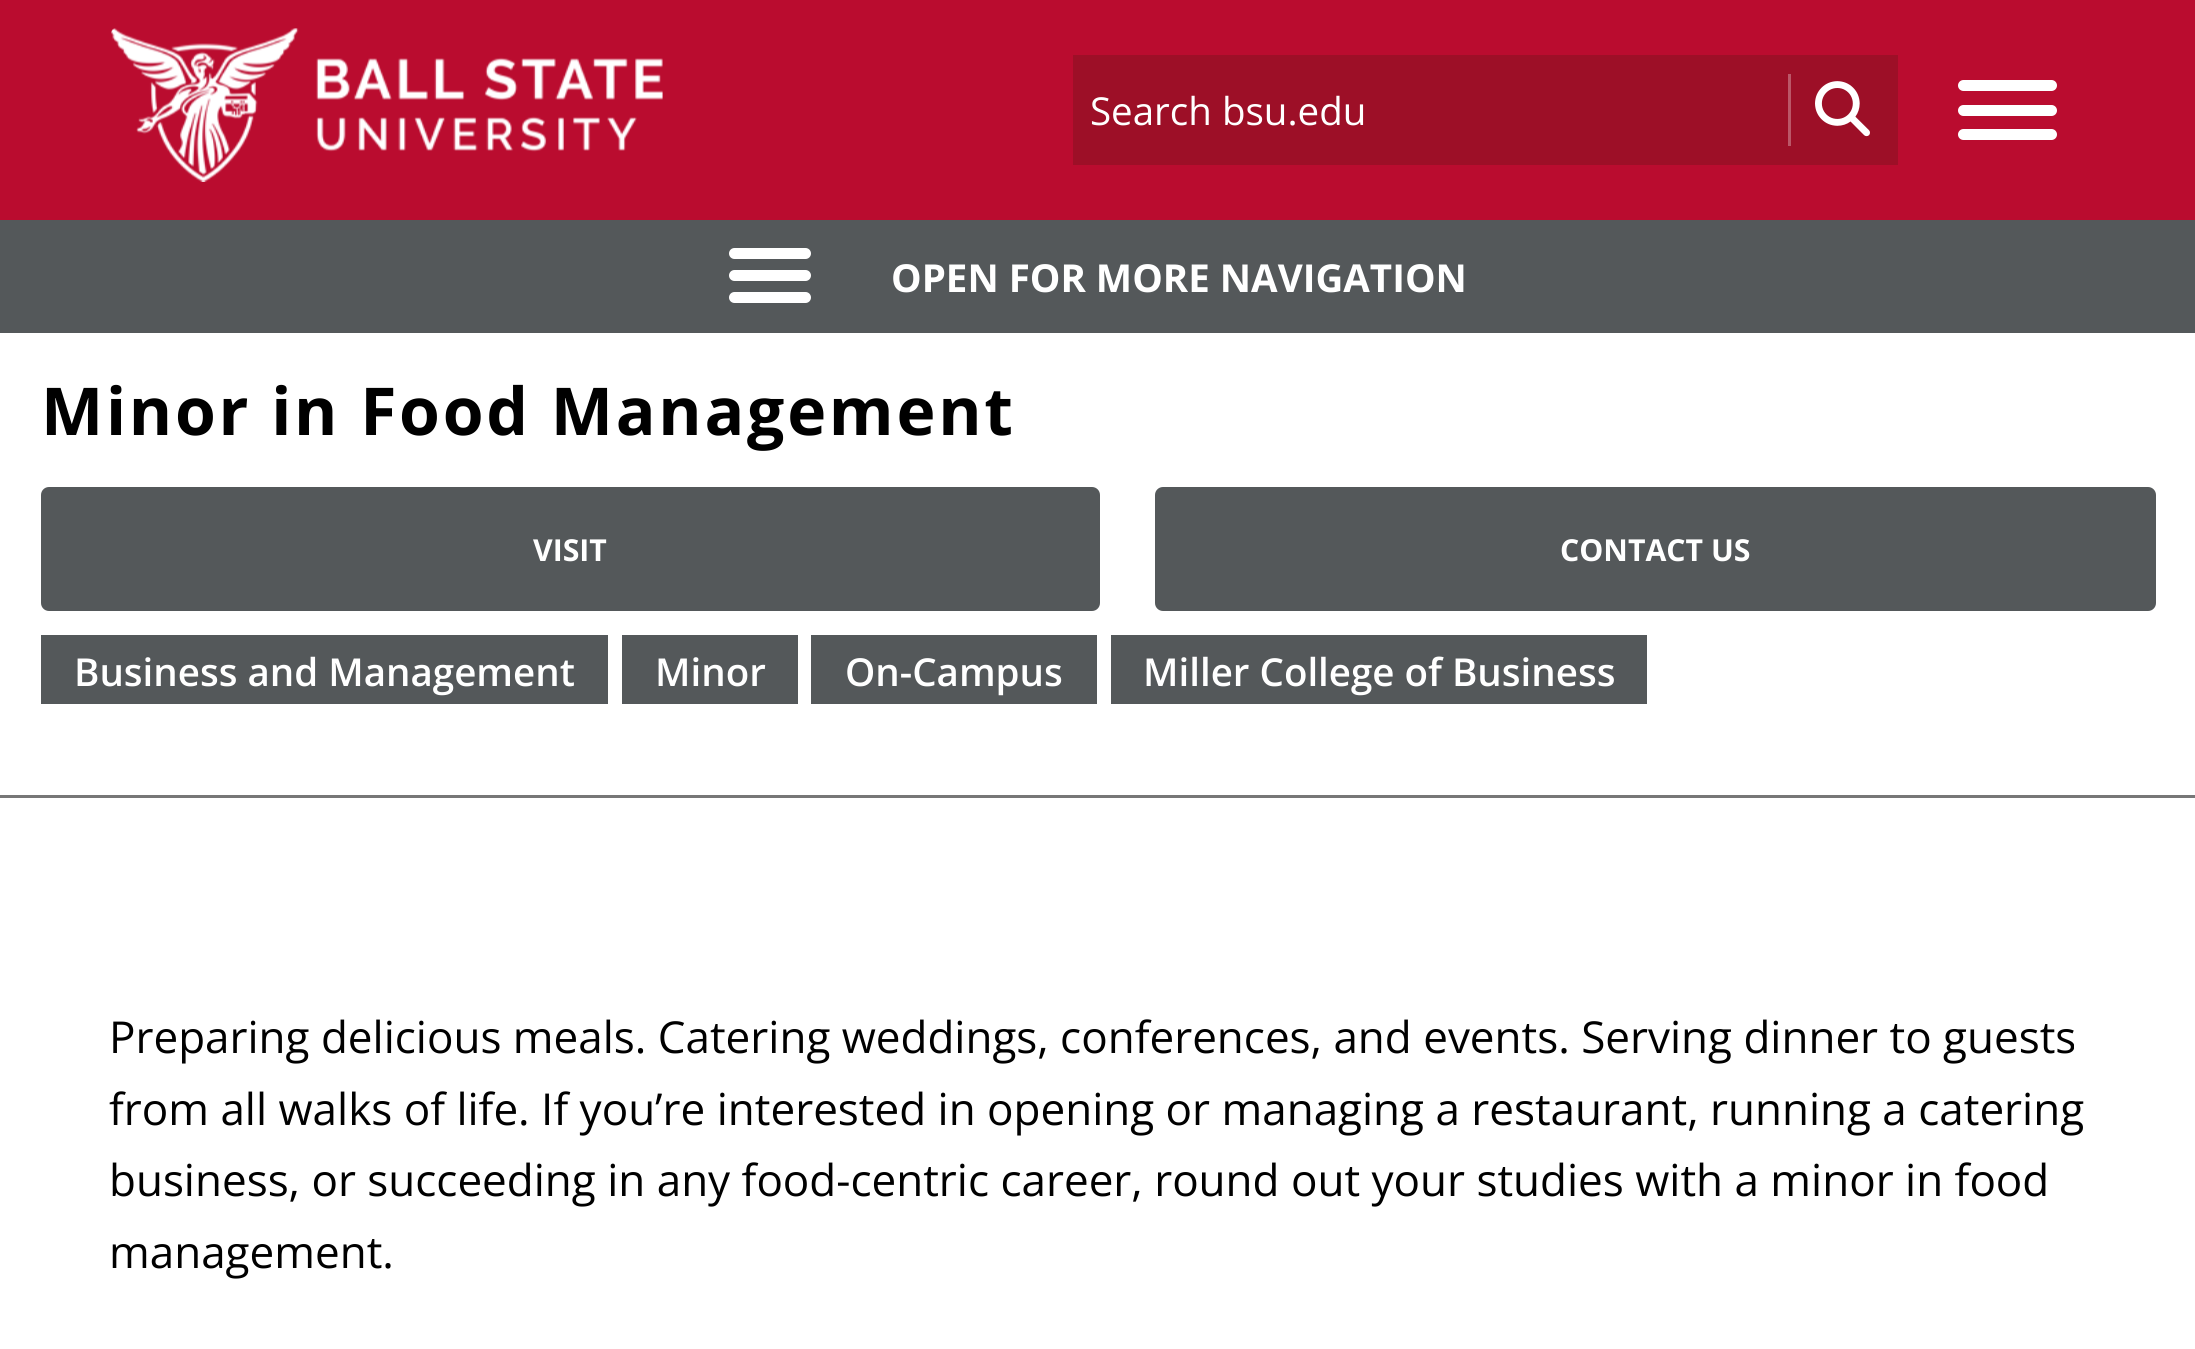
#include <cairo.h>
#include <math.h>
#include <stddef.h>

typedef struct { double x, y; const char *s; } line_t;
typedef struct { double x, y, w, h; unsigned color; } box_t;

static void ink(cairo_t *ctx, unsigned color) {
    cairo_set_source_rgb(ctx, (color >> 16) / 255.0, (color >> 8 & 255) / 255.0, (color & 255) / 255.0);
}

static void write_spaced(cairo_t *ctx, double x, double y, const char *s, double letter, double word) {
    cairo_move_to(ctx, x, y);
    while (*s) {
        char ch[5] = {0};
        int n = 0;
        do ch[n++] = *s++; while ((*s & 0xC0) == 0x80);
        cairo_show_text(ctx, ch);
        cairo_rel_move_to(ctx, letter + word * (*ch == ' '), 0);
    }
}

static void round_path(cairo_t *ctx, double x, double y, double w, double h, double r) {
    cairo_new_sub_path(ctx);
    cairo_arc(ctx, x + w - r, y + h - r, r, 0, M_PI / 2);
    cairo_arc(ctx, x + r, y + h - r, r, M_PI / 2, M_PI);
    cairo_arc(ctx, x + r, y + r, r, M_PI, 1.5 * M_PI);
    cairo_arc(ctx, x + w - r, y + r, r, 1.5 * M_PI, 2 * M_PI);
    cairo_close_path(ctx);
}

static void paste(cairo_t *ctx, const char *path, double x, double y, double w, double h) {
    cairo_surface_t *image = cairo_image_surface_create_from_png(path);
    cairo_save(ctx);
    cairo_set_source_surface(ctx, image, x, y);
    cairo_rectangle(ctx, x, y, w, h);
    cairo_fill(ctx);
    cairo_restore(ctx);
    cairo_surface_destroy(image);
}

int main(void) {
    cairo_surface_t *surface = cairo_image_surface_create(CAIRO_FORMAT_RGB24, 2195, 1349);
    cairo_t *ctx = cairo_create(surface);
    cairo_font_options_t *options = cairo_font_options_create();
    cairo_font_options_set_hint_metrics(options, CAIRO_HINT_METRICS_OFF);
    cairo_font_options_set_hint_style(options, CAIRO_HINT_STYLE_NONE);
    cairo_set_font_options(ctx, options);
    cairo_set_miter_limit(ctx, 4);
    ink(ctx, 0xFFFFFF);
    cairo_paint(ctx);
    ink(ctx, 0xBA0C2F);
    cairo_rectangle(ctx, 0, 0, 2195, 220);
    cairo_fill(ctx);
    paste(ctx, "media/1.png", 111, 28, 552, 154);
    ink(ctx, 0x9D0F27);
    cairo_rectangle(ctx, 1073, 55, 715, 110);
    cairo_fill(ctx);
    cairo_select_font_face(ctx, "Open Sans", CAIRO_FONT_SLANT_NORMAL, CAIRO_FONT_WEIGHT_NORMAL);
    cairo_set_font_size(ctx, 38.5);
    ink(ctx, 0xFFFFFF);
    cairo_move_to(ctx, 1090, 125);
    cairo_show_text(ctx, "Search bsu.edu");
    {
        static const box_t items[] = {
            {1791, 55, 107, 110, 0x9D0F27},
            {1788, 55, 3, 19, 0x9D0F27},
            {1788, 74, 3, 72, 0xBB5768},
        };
        for (size_t i = 0; i < sizeof items / sizeof *items; i++) {
            ink(ctx, items[i].color);
            cairo_rectangle(ctx, items[i].x, items[i].y, items[i].w, items[i].h);
            cairo_fill(ctx);
        }
    }
    paste(ctx, "media/2.png", 1815, 81, 55, 56);
    ink(ctx, 0x9D0F27);
    cairo_rectangle(ctx, 1788, 146, 3, 19);
    cairo_fill(ctx);
    ink(ctx, 0xFFFFFF);
    round_path(ctx, 1958, 80, 99, 11, 5.5);
    cairo_fill(ctx);
    round_path(ctx, 1958, 105, 99, 11, 5.5);
    cairo_fill(ctx);
    round_path(ctx, 1958, 129, 99, 11, 5.5);
    cairo_fill(ctx);
    ink(ctx, 0x777777);
    cairo_rectangle(ctx, 0, 795, 2195, 3);
    cairo_fill(ctx);
    ink(ctx, 0x54585A);
    cairo_rectangle(ctx, 0, 220, 2195, 113);
    cairo_fill(ctx);
    ink(ctx, 0xFFFFFF);
    round_path(ctx, 729, 248, 82, 11, 5.5);
    cairo_fill(ctx);
    round_path(ctx, 729, 270, 82, 11, 5.5);
    cairo_fill(ctx);
    round_path(ctx, 729, 292, 82, 11, 5.5);
    cairo_fill(ctx);
    cairo_select_font_face(ctx, "Open Sans", CAIRO_FONT_SLANT_NORMAL, CAIRO_FONT_WEIGHT_BOLD);
    cairo_move_to(ctx, 891, 292);
    cairo_show_text(ctx, "OPEN FOR MORE NAVIGATION");
    cairo_set_font_size(ctx, 66);
    ink(ctx, 0x000000);
    write_spaced(ctx, 41, 435, "Minor in Food Management", 2.75, 0);
    ink(ctx, 0x54585A);
    round_path(ctx, 41, 487, 1059, 124, 8);
    cairo_fill(ctx);
    cairo_set_font_size(ctx, 30.25);
    ink(ctx, 0xFFFFFF);
    cairo_move_to(ctx, 533, 561);
    cairo_show_text(ctx, "VISIT");
    ink(ctx, 0x54585A);
    round_path(ctx, 1155, 487, 1001, 124, 8);
    cairo_fill(ctx);
    ink(ctx, 0xFFFFFF);
    cairo_move_to(ctx, 1560, 561);
    cairo_show_text(ctx, "CONTACT US");
    ink(ctx, 0x54585A);
    cairo_rectangle(ctx, 41, 635, 567, 69);
    cairo_fill(ctx);
    cairo_select_font_face(ctx, "Open Sans SemiBold", CAIRO_FONT_SLANT_NORMAL, CAIRO_FONT_WEIGHT_NORMAL);
    cairo_set_font_size(ctx, 38.5);
    ink(ctx, 0xFFFFFF);
    cairo_move_to(ctx, 74, 686);
    cairo_show_text(ctx, "Business and Management");
    ink(ctx, 0x54585A);
    cairo_rectangle(ctx, 622, 635, 176, 69);
    cairo_fill(ctx);
    ink(ctx, 0xFFFFFF);
    cairo_move_to(ctx, 655, 686);
    cairo_show_text(ctx, "Minor");
    ink(ctx, 0x54585A);
    cairo_rectangle(ctx, 811, 635, 286, 69);
    cairo_fill(ctx);
    ink(ctx, 0xFFFFFF);
    cairo_move_to(ctx, 845, 686);
    cairo_show_text(ctx, "On-Campus");
    ink(ctx, 0x54585A);
    cairo_rectangle(ctx, 1111, 635, 536, 69);
    cairo_fill(ctx);
    ink(ctx, 0xFFFFFF);
    cairo_move_to(ctx, 1143, 686);
    cairo_show_text(ctx, "Miller College of Business");
    cairo_select_font_face(ctx, "Open Sans", CAIRO_FONT_SLANT_NORMAL, CAIRO_FONT_WEIGHT_NORMAL);
    cairo_set_font_size(ctx, 44);
    ink(ctx, 0x000000);
    {
        static const line_t items[] = {
            {109, 1053, "Preparing delicious meals. Catering weddings, conferences, and events. Serving dinner to guests"},
            {109, 1125, "from all walks of life. If you’re interested in opening or managing a restaurant, running a catering"},
            {109, 1196, "business, or succeeding in any food-centric career, round out your studies with a minor in food"},
            {109, 1268, "management."},
        };
        for (size_t i = 0; i < sizeof items / sizeof *items; i++) {
            cairo_move_to(ctx, items[i].x, items[i].y);
            cairo_show_text(ctx, items[i].s);
        }
    }
    cairo_surface_write_to_png(surface, "image.png");
    cairo_font_options_destroy(options);
    cairo_destroy(ctx);
    cairo_surface_destroy(surface);
    return 0;
}
